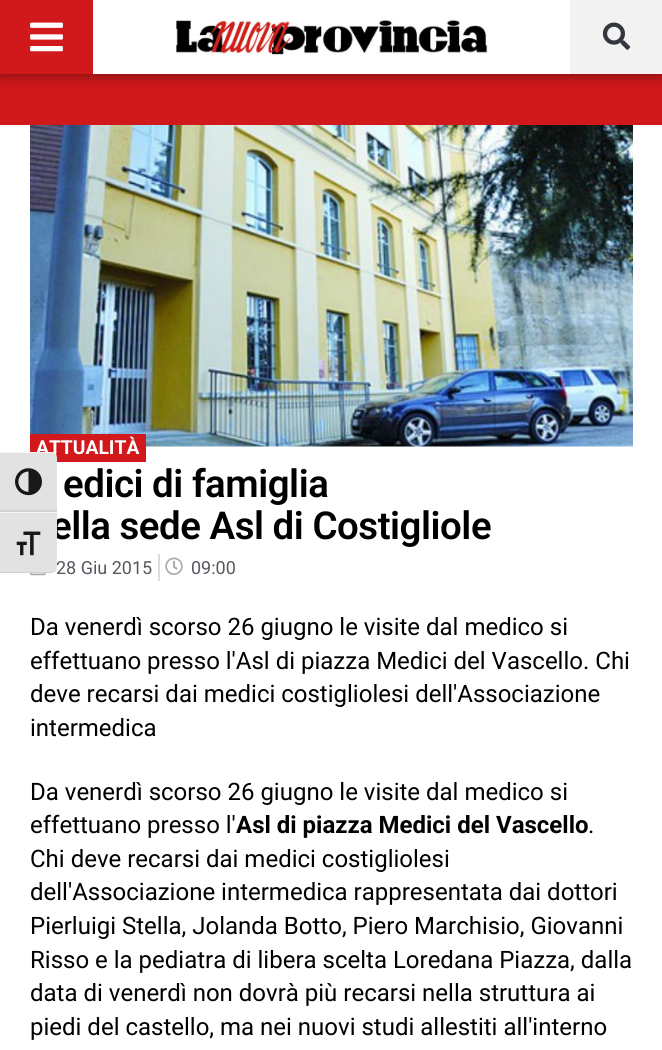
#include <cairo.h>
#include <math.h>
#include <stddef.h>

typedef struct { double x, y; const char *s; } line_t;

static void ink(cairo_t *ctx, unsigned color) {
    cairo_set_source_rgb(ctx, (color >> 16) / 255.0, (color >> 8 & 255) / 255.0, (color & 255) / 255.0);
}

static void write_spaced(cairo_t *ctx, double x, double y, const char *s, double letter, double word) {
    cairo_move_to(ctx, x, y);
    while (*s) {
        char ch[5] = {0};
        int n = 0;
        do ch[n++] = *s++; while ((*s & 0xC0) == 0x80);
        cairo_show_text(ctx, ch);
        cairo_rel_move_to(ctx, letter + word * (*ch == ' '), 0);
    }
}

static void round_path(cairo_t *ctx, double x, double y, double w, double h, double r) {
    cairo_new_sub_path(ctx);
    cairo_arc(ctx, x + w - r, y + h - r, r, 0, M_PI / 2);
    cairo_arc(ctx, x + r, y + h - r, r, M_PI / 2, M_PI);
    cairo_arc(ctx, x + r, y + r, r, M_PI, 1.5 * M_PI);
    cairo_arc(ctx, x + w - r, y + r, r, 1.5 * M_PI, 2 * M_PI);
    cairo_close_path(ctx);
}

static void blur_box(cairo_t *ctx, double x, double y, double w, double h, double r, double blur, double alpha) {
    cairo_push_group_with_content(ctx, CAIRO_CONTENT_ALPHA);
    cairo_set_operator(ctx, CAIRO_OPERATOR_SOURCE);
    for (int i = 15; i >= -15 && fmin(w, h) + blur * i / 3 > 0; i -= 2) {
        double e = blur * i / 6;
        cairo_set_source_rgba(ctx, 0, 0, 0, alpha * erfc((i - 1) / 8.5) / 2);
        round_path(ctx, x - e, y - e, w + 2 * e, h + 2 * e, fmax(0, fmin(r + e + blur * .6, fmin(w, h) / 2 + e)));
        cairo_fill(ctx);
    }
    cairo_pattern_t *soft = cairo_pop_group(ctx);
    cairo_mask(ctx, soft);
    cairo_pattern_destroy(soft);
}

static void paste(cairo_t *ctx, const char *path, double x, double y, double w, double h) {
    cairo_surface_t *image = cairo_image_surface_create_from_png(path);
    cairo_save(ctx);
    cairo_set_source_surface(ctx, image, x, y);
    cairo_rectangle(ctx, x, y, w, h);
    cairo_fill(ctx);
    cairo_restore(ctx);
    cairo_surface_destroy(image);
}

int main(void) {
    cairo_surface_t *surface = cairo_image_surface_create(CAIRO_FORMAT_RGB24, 662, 1050);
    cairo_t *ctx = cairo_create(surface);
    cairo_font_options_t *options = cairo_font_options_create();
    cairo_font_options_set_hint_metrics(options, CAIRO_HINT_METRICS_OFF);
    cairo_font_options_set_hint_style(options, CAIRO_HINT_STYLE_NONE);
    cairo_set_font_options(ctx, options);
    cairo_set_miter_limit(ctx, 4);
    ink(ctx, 0xFFFFFF);
    cairo_paint(ctx);
    ink(ctx, 0xD1191B);
    cairo_rectangle(ctx, 0, 74, 662, 51);
    cairo_fill(ctx);
    ink(ctx, 0x000000);
    blur_box(ctx, 0, 0, 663, 74, 0, 7.5, 0.5);
    ink(ctx, 0xFFFFFF);
    cairo_rectangle(ctx, 93, 0, 477, 74);
    cairo_fill(ctx);
    ink(ctx, 0xD1191B);
    cairo_rectangle(ctx, 0, 0, 93, 74);
    cairo_fill(ctx);
    paste(ctx, "media/1.png", 30, 22, 33, 30);
    paste(ctx, "media/2.png", 176, 18, 312, 37);
    ink(ctx, 0xF2F2F2);
    cairo_rectangle(ctx, 570, 0, 92, 74);
    cairo_fill(ctx);
    paste(ctx, "media/3.png", 602, 22, 29, 28);
    paste(ctx, "media/6.png", 30, 125, 603, 322);
    ink(ctx, 0xD1191B);
    cairo_rectangle(ctx, 30, 434, 116, 28);
    cairo_fill(ctx);
    cairo_select_font_face(ctx, "Roboto", CAIRO_FONT_SLANT_NORMAL, CAIRO_FONT_WEIGHT_BOLD);
    cairo_set_font_size(ctx, 19.25);
    ink(ctx, 0xFFFFFF);
    cairo_move_to(ctx, 36, 454);
    cairo_show_text(ctx, "ATTUALITÀ");
    cairo_select_font_face(ctx, "Roboto SemiBold", CAIRO_FONT_SLANT_NORMAL, CAIRO_FONT_WEIGHT_NORMAL);
    cairo_set_font_size(ctx, 38.4);
    ink(ctx, 0x000000);
    write_spaced(ctx, 51, 539, "ella sede Asl di Costigliole", -0.45, 0);
    ink(ctx, 0xE2E2E2);
    cairo_new_path(ctx);
    cairo_move_to(ctx, 0, 452);
    cairo_line_to(ctx, 51, 452);
    cairo_curve_to(ctx, 54.5, 452, 57, 454.5, 57, 458);
    cairo_line_to(ctx, 57, 512);
    cairo_line_to(ctx, 0, 512);
    cairo_close_path(ctx);
    cairo_fill(ctx);
    ink(ctx, 0xF5F5F5);
    cairo_new_path(ctx);
    cairo_move_to(ctx, 0, 453);
    cairo_line_to(ctx, 51, 453);
    cairo_curve_to(ctx, 54, 453, 57, 455, 57, 458);
    cairo_curve_to(ctx, 57, 454, 54, 452, 51, 452);
    cairo_line_to(ctx, 0, 452);
    cairo_close_path(ctx);
    cairo_fill(ctx);
    ink(ctx, 0xD2D2D2);
    cairo_rectangle(ctx, 0, 510, 57, 2);
    cairo_fill(ctx);
    paste(ctx, "media/4.png", 15, 468, 27, 28);
    cairo_select_font_face(ctx, "Roboto", CAIRO_FONT_SLANT_NORMAL, CAIRO_FONT_WEIGHT_NORMAL);
    cairo_set_font_size(ctx, 18);
    ink(ctx, 0x54595F);
    cairo_move_to(ctx, 56, 574);
    cairo_show_text(ctx, "28 Giu 2015");
    ink(ctx, 0xE2E2E2);
    cairo_new_path(ctx);
    cairo_move_to(ctx, 0, 512);
    cairo_line_to(ctx, 57, 512);
    cairo_line_to(ctx, 57, 567);
    cairo_curve_to(ctx, 57, 570.5, 54.5, 573, 51, 573);
    cairo_line_to(ctx, 0, 573);
    cairo_close_path(ctx);
    cairo_fill(ctx);
    ink(ctx, 0xF5F5F5);
    cairo_rectangle(ctx, 0, 512, 57, 1);
    cairo_fill(ctx);
    ink(ctx, 0xD2D2D2);
    cairo_new_path(ctx);
    cairo_move_to(ctx, 0, 572);
    cairo_line_to(ctx, 0, 573);
    cairo_line_to(ctx, 51, 573);
    cairo_curve_to(ctx, 54, 573, 57, 570, 57, 567);
    cairo_curve_to(ctx, 57, 569, 54, 572, 51, 572);
    cairo_close_path(ctx);
    cairo_fill(ctx);
    paste(ctx, "media/5.png", 16, 531, 25, 25);
    cairo_select_font_face(ctx, "Roboto SemiBold", CAIRO_FONT_SLANT_NORMAL, CAIRO_FONT_WEIGHT_NORMAL);
    cairo_set_font_size(ctx, 38.4);
    ink(ctx, 0x000000);
    write_spaced(ctx, 63, 497, "edici di famiglia", -0.45, 0);
    paste(ctx, "media/7.png", 30, 573, 16, 3);
    ink(ctx, 0xDDDDDD);
    cairo_rectangle(ctx, 158, 554, 2, 27);
    cairo_fill(ctx);
    paste(ctx, "media/8.png", 165, 557, 18, 18);
    cairo_select_font_face(ctx, "Roboto", CAIRO_FONT_SLANT_NORMAL, CAIRO_FONT_WEIGHT_NORMAL);
    cairo_set_font_size(ctx, 18);
    ink(ctx, 0x54595F);
    cairo_move_to(ctx, 191, 574);
    cairo_show_text(ctx, "09:00");
    cairo_set_font_size(ctx, 24);
    ink(ctx, 0x000000);
    {
        static const line_t items[] = {
            {30, 635, "Da venerdì scorso 26 giugno le visite dal medico si"},
            {30, 669, "effettuano presso l'Asl di piazza Medici del Vascello. Chi"},
            {30, 702, "deve recarsi dai medici costigliolesi dell'Associazione"},
            {30, 736, "intermedica"},
            {30, 800, "Da venerdì scorso 26 giugno le visite dal medico si"},
            {30, 833, "effettuano presso l'"},
        };
        for (size_t i = 0; i < sizeof items / sizeof *items; i++) {
            cairo_move_to(ctx, items[i].x, items[i].y);
            cairo_show_text(ctx, items[i].s);
        }
    }
    cairo_select_font_face(ctx, "Roboto", CAIRO_FONT_SLANT_NORMAL, CAIRO_FONT_WEIGHT_BOLD);
    cairo_move_to(ctx, 236, 833);
    cairo_show_text(ctx, "Asl di piazza Medici del Vascello");
    cairo_select_font_face(ctx, "Roboto", CAIRO_FONT_SLANT_NORMAL, CAIRO_FONT_WEIGHT_NORMAL);
    {
        static const line_t items[] = {
            {588, 833, "."},
            {30, 867, "Chi deve recarsi dai medici costigliolesi"},
            {30, 900, "dell'Associazione intermedica rappresentata dai dottori"},
            {30, 934, "Pierluigi Stella, Jolanda Botto, Piero Marchisio, Giovanni"},
            {30, 968, "Risso e la pediatra di libera scelta Loredana Piazza, dalla"},
            {30, 1001, "data di venerdì non dovrà più recarsi nella struttura ai"},
            {30, 1035, "piedi del castello, ma nei nuovi studi allestiti all'interno"},
        };
        for (size_t i = 0; i < sizeof items / sizeof *items; i++) {
            cairo_move_to(ctx, items[i].x, items[i].y);
            cairo_show_text(ctx, items[i].s);
        }
    }
    cairo_surface_write_to_png(surface, "image.png");
    cairo_font_options_destroy(options);
    cairo_destroy(ctx);
    cairo_surface_destroy(surface);
    return 0;
}
